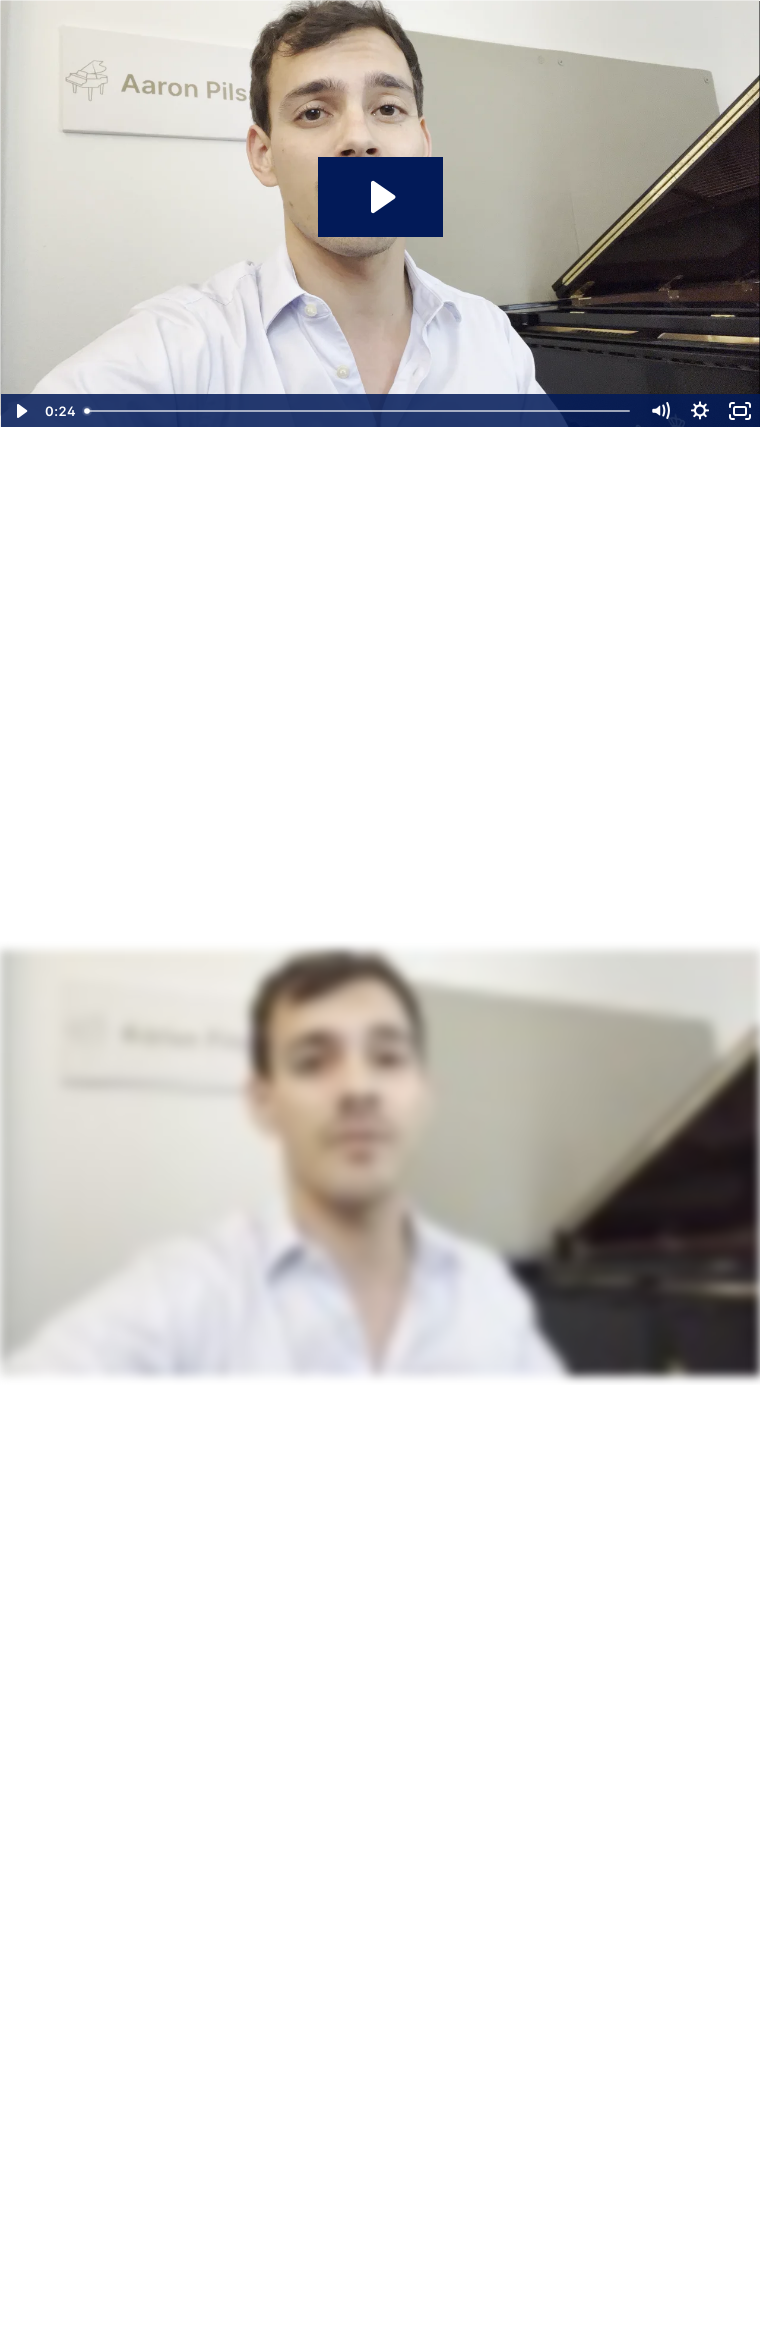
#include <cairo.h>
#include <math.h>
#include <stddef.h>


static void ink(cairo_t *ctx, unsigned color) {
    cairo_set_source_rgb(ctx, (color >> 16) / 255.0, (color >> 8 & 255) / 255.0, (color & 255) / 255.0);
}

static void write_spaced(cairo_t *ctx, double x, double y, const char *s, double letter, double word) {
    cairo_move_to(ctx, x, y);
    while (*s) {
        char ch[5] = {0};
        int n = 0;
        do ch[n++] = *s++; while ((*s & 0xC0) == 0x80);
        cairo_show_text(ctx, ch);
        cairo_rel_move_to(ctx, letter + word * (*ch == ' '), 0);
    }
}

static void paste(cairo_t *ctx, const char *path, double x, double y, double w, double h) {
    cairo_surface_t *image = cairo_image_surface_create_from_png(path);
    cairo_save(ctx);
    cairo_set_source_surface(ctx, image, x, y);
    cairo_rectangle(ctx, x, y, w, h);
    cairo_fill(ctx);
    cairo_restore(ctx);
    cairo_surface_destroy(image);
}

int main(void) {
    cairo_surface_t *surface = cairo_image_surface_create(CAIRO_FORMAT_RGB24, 760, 2326);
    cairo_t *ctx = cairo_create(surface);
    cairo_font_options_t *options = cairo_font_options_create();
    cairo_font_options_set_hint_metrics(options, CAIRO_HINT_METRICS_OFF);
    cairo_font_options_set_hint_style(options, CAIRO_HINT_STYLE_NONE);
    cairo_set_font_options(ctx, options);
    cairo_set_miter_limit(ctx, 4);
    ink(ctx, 0xFFFFFF);
    cairo_paint(ctx);
    paste(ctx, "media/1.png", 0, 0, 760, 427);
    ink(ctx, 0x000000);
    cairo_rectangle(ctx, 759, 1, 1, 426);
    cairo_fill(ctx);
    paste(ctx, "media/2.png", 0, 0, 760, 427);
    ink(ctx, 0x021A58);
    cairo_rectangle(ctx, 318, 157, 125, 80);
    cairo_fill(ctx);
    paste(ctx, "media/3.png", 371, 180, 25, 34);
    cairo_set_source_rgba(ctx, 0.008, 0.102, 0.345, 0.85);
    cairo_rectangle(ctx, 1, 394, 759, 33);
    cairo_fill(ctx);
    paste(ctx, "media/4.png", 17, 404, 11, 14);
    cairo_select_font_face(ctx, "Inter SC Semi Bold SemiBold", CAIRO_FONT_SLANT_NORMAL, CAIRO_FONT_WEIGHT_NORMAL);
    cairo_set_font_size(ctx, 13);
    ink(ctx, 0xFFFFFF);
    write_spaced(ctx, 45, 416, "0:24", 0.5, 0);
    paste(ctx, "media/5.png", 82, 406, 548, 10);
    paste(ctx, "media/6.png", 652, 402, 18, 17);
    paste(ctx, "media/7.png", 691, 401, 18, 19);
    paste(ctx, "media/8.png", 729, 402, 22, 18);
    paste(ctx, "media/9.png", 0, 941, 760, 444);
    cairo_surface_write_to_png(surface, "image.png");
    cairo_font_options_destroy(options);
    cairo_destroy(ctx);
    cairo_surface_destroy(surface);
    return 0;
}
